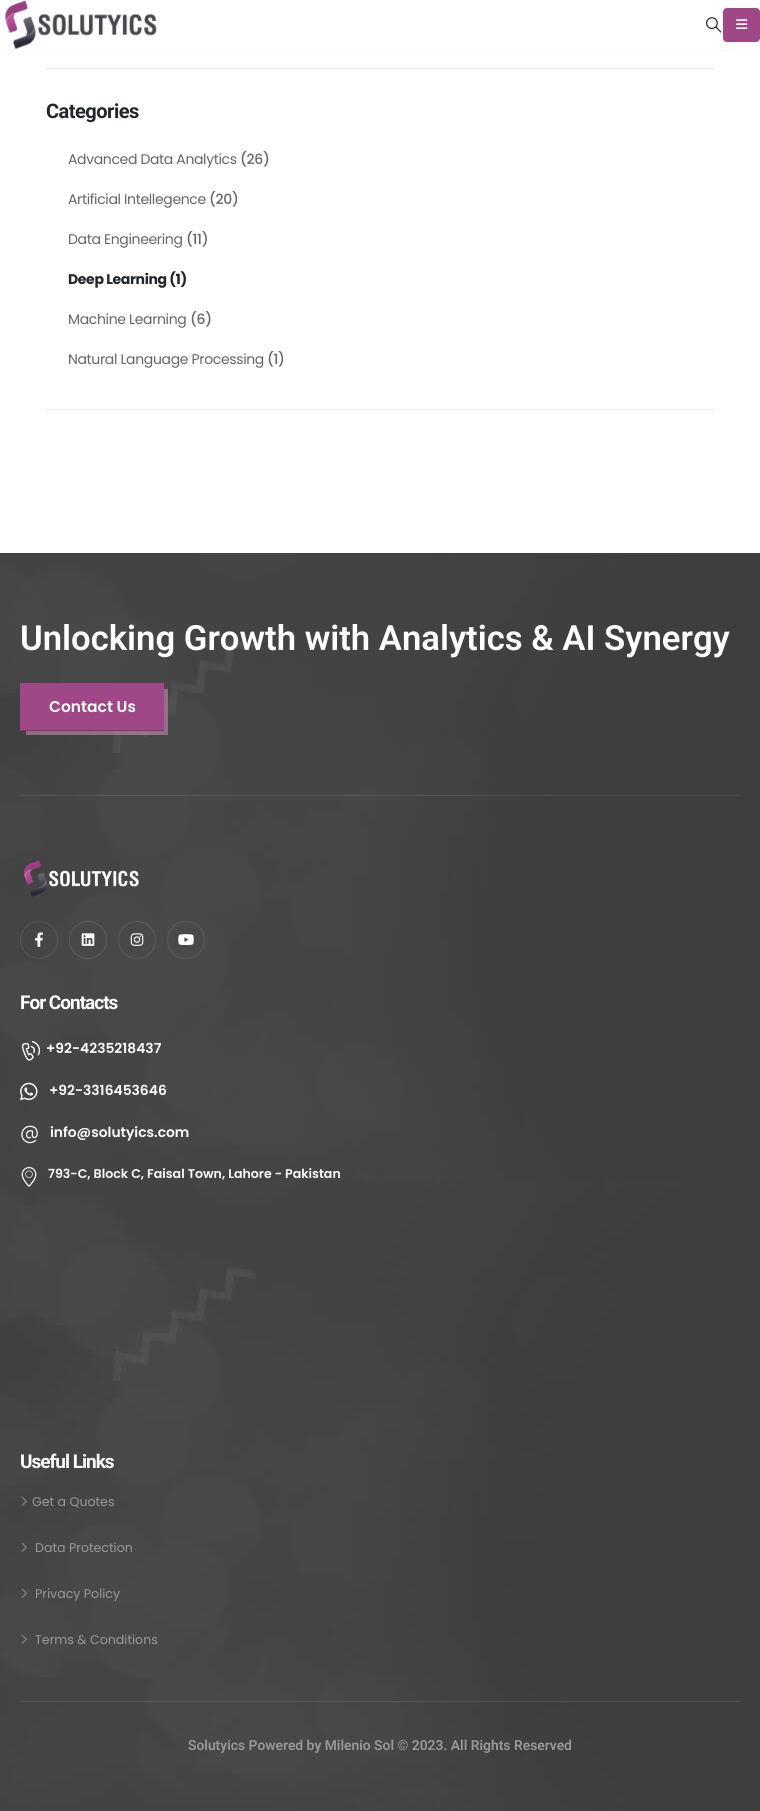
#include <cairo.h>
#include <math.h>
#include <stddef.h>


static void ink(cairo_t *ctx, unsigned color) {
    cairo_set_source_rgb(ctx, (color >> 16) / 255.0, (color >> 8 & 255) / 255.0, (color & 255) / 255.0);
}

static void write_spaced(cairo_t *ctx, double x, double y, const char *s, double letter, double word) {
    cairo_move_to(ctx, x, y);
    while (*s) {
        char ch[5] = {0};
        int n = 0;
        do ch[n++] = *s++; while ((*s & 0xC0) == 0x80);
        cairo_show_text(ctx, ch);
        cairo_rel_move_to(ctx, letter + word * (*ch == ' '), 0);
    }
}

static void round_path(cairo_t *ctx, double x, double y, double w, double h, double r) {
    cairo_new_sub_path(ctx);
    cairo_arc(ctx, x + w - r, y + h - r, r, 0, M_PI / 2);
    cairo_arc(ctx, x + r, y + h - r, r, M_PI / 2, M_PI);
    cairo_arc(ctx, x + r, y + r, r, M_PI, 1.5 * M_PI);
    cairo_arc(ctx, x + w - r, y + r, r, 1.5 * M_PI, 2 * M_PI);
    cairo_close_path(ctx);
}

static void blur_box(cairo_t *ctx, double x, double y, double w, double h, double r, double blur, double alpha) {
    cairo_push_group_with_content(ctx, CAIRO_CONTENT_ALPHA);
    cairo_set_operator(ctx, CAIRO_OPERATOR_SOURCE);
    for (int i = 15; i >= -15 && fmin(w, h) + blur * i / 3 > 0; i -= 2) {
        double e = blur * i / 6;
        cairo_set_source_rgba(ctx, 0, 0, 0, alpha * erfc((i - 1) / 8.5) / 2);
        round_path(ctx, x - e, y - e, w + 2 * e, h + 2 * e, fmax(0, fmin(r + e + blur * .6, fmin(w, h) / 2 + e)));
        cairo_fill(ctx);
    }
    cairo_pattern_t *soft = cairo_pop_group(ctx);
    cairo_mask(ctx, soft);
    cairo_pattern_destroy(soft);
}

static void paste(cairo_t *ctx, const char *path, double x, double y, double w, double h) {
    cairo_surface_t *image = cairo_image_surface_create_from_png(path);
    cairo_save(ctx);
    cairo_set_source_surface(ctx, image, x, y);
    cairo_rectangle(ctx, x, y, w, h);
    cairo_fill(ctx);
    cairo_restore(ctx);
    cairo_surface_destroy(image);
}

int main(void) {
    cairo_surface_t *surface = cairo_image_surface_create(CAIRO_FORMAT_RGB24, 760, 1811);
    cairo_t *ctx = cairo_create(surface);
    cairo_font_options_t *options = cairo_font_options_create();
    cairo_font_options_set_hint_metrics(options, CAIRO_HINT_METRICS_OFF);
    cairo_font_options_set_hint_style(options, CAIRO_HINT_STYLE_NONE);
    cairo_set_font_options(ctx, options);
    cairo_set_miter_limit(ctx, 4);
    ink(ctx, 0xFFFFFF);
    cairo_paint(ctx);
    ink(ctx, 0x000000);
    blur_box(ctx, 0, 0, 760, 50, 0, 1.5, 0.06);
    ink(ctx, 0xFFFFFF);
    cairo_rectangle(ctx, 0, 0, 760, 50);
    cairo_fill(ctx);
    paste(ctx, "media/1.png", 5, 0, 152, 49);
    paste(ctx, "media/2.png", 706, 17, 16, 16);
    ink(ctx, 0x9F4787);
    round_path(ctx, 723, 8, 37, 34, 4);
    cairo_fill(ctx);
    paste(ctx, "media/3.png", 736, 19, 12, 10);
    ink(ctx, 0xEBEBEB);
    cairo_rectangle(ctx, 46, 68, 668, 1);
    cairo_fill(ctx);
    cairo_select_font_face(ctx, "Roboto", CAIRO_FONT_SLANT_NORMAL, CAIRO_FONT_WEIGHT_BOLD);
    cairo_set_font_size(ctx, 20);
    ink(ctx, 0x222529);
    write_spaced(ctx, 46, 118, "Categories", -0.5, 0);
    cairo_select_font_face(ctx, "Poppins", CAIRO_FONT_SLANT_NORMAL, CAIRO_FONT_WEIGHT_NORMAL);
    cairo_set_font_size(ctx, 14);
    ink(ctx, 0x666666);
    write_spaced(ctx, 68, 164, "Advanced Data Analytics", -0.35, 0);
    cairo_select_font_face(ctx, "Poppins Medium", CAIRO_FONT_SLANT_NORMAL, CAIRO_FONT_WEIGHT_NORMAL);
    write_spaced(ctx, 240, 164, "(26)", -0.35, 0);
    cairo_select_font_face(ctx, "Poppins", CAIRO_FONT_SLANT_NORMAL, CAIRO_FONT_WEIGHT_NORMAL);
    write_spaced(ctx, 68, 204, "Artificial Intellegence", -0.35, 0);
    cairo_select_font_face(ctx, "Poppins Medium", CAIRO_FONT_SLANT_NORMAL, CAIRO_FONT_WEIGHT_NORMAL);
    write_spaced(ctx, 209, 204, "(20)", -0.35, 0);
    cairo_select_font_face(ctx, "Poppins", CAIRO_FONT_SLANT_NORMAL, CAIRO_FONT_WEIGHT_NORMAL);
    write_spaced(ctx, 68, 244, "Data Engineering", -0.35, 0);
    cairo_select_font_face(ctx, "Poppins Medium", CAIRO_FONT_SLANT_NORMAL, CAIRO_FONT_WEIGHT_NORMAL);
    write_spaced(ctx, 186, 244, "(11)", -0.35, 0);
    cairo_select_font_face(ctx, "Poppins", CAIRO_FONT_SLANT_NORMAL, CAIRO_FONT_WEIGHT_BOLD);
    ink(ctx, 0x222529);
    write_spaced(ctx, 68, 284, "Deep Learning (1)", -0.35, 0);
    cairo_select_font_face(ctx, "Poppins", CAIRO_FONT_SLANT_NORMAL, CAIRO_FONT_WEIGHT_NORMAL);
    ink(ctx, 0x666666);
    write_spaced(ctx, 68, 324, "Machine Learning", -0.35, 0);
    cairo_select_font_face(ctx, "Poppins Medium", CAIRO_FONT_SLANT_NORMAL, CAIRO_FONT_WEIGHT_NORMAL);
    write_spaced(ctx, 190, 324, "(6)", -0.35, 0);
    cairo_select_font_face(ctx, "Poppins", CAIRO_FONT_SLANT_NORMAL, CAIRO_FONT_WEIGHT_NORMAL);
    write_spaced(ctx, 68, 364, "Natural Language Processing", -0.35, 0);
    cairo_select_font_face(ctx, "Poppins Medium", CAIRO_FONT_SLANT_NORMAL, CAIRO_FONT_WEIGHT_NORMAL);
    write_spaced(ctx, 267, 364, "(1)", -0.35, 0);
    ink(ctx, 0xEBEBEB);
    cairo_rectangle(ctx, 46, 409, 668, 1);
    cairo_fill(ctx);
    paste(ctx, "media/4.png", 0, 553, 760, 1258);
    cairo_select_font_face(ctx, "Roboto SemiBold", CAIRO_FONT_SLANT_NORMAL, CAIRO_FONT_WEIGHT_NORMAL);
    cairo_set_font_size(ctx, 34.65);
    ink(ctx, 0xFFFFFF);
    cairo_move_to(ctx, 20, 650);
    cairo_show_text(ctx, "Unlocking Growth with Analytics & AI Synergy");
    cairo_set_source_rgba(ctx, 0.706, 0.498, 0.639, 0.7);
    cairo_rectangle(ctx, 26, 689, 142, 46);
    cairo_fill(ctx);
    ink(ctx, 0x9F4787);
    cairo_rectangle(ctx, 21, 683, 143, 47);
    cairo_fill(ctx);
    ink(ctx, 0x7C386A);
    cairo_rectangle(ctx, 20, 730, 144, 1);
    cairo_fill(ctx);
    ink(ctx, 0x9F4787);
    cairo_rectangle(ctx, 20, 683, 1, 48);
    cairo_fill(ctx);
    cairo_select_font_face(ctx, "Poppins SemiBold", CAIRO_FONT_SLANT_NORMAL, CAIRO_FONT_WEIGHT_NORMAL);
    cairo_set_font_size(ctx, 15.5);
    ink(ctx, 0xFFFFFF);
    cairo_move_to(ctx, 49, 712);
    cairo_show_text(ctx, "Contact Us");
    cairo_set_source_rgba(ctx, 1, 1, 1, 0.1);
    cairo_rectangle(ctx, 20, 795, 720, 1);
    cairo_fill(ctx);
    paste(ctx, "media/5.png", 23, 860, 116, 37);
    cairo_arc(ctx, 39, 940, 18.5, 0, 2 * M_PI);
    cairo_set_line_width(ctx, 1);
    cairo_stroke(ctx);
    paste(ctx, "media/6.png", 35, 932, 8, 15);
    cairo_arc(ctx, 88, 940, 18.5, 0, 2 * M_PI);
    ink(ctx, 0x5A5A5A);
    cairo_stroke(ctx);
    paste(ctx, "media/7.png", 81, 933, 14, 13);
    cairo_arc(ctx, 137, 940, 18.5, 0, 2 * M_PI);
    ink(ctx, 0x5B5B5B);
    cairo_stroke(ctx);
    paste(ctx, "media/8.png", 130, 933, 14, 13);
    cairo_arc(ctx, 186, 940, 18.5, 0, 2 * M_PI);
    cairo_stroke(ctx);
    paste(ctx, "media/9.png", 178, 934, 16, 11);
    cairo_select_font_face(ctx, "Roboto", CAIRO_FONT_SLANT_NORMAL, CAIRO_FONT_WEIGHT_BOLD);
    cairo_set_font_size(ctx, 19);
    ink(ctx, 0xFFFFFF);
    write_spaced(ctx, 20, 1009, "For Contacts", -1, 0);
    paste(ctx, "media/10.png", 21, 1041, 20, 20);
    cairo_select_font_face(ctx, "Poppins SemiBold", CAIRO_FONT_SLANT_NORMAL, CAIRO_FONT_WEIGHT_NORMAL);
    cairo_set_font_size(ctx, 13.85);
    cairo_move_to(ctx, 46, 1053);
    cairo_show_text(ctx, "+92-4235218437");
    paste(ctx, "media/11.png", 20, 1082, 18, 19);
    cairo_move_to(ctx, 49, 1095);
    cairo_show_text(ctx, "+92-3316453646");
    paste(ctx, "media/12.png", 21, 1125, 17, 19);
    cairo_move_to(ctx, 50, 1137);
    cairo_show_text(ctx, "info@solutyics.com");
    paste(ctx, "media/13.png", 21, 1167, 16, 20);
    cairo_set_font_size(ctx, 12.6);
    cairo_move_to(ctx, 48, 1178);
    cairo_show_text(ctx, "793-C, Block C, Faisal Town, Lahore - Pakistan");
    cairo_select_font_face(ctx, "Roboto", CAIRO_FONT_SLANT_NORMAL, CAIRO_FONT_WEIGHT_BOLD);
    cairo_set_font_size(ctx, 19);
    write_spaced(ctx, 20, 1468, "Useful Links", -1, 0);
    paste(ctx, "media/14.png", 21, 1496, 6, 10);
    cairo_select_font_face(ctx, "Poppins", CAIRO_FONT_SLANT_NORMAL, CAIRO_FONT_WEIGHT_NORMAL);
    cairo_set_font_size(ctx, 12.6);
    ink(ctx, 0x999999);
    cairo_move_to(ctx, 32, 1506);
    cairo_show_text(ctx, "Get a Quotes");
    paste(ctx, "media/15.png", 21, 1542, 6, 10);
    cairo_move_to(ctx, 35, 1552);
    cairo_show_text(ctx, "Data Protection");
    paste(ctx, "media/16.png", 21, 1588, 6, 10);
    cairo_move_to(ctx, 35, 1598);
    cairo_show_text(ctx, "Privacy Policy");
    paste(ctx, "media/17.png", 21, 1634, 6, 10);
    cairo_move_to(ctx, 35, 1644);
    cairo_show_text(ctx, "Terms & Conditions");
    cairo_set_source_rgba(ctx, 1, 1, 1, 0.1);
    cairo_rectangle(ctx, 20, 1701, 720, 1);
    cairo_fill(ctx);
    cairo_select_font_face(ctx, "Roboto SemiBold", CAIRO_FONT_SLANT_NORMAL, CAIRO_FONT_WEIGHT_NORMAL);
    cairo_set_font_size(ctx, 13.85);
    ink(ctx, 0x999999);
    cairo_move_to(ctx, 188, 1750);
    cairo_show_text(ctx, "Solutyics Powered by Milenio Sol © 2023. All Rights Reserved");
    cairo_surface_write_to_png(surface, "image.png");
    cairo_font_options_destroy(options);
    cairo_destroy(ctx);
    cairo_surface_destroy(surface);
    return 0;
}
